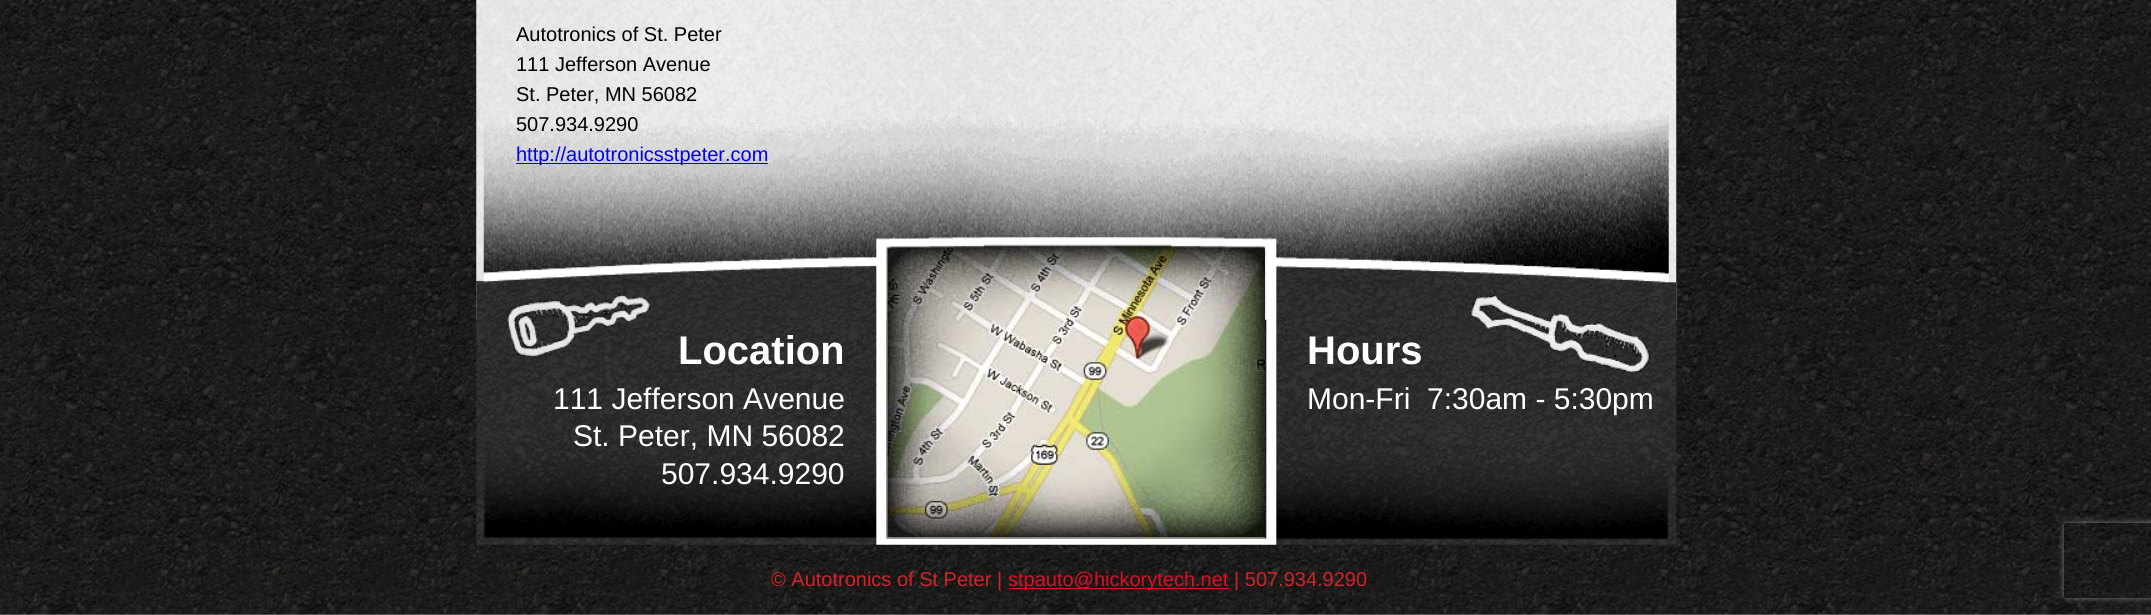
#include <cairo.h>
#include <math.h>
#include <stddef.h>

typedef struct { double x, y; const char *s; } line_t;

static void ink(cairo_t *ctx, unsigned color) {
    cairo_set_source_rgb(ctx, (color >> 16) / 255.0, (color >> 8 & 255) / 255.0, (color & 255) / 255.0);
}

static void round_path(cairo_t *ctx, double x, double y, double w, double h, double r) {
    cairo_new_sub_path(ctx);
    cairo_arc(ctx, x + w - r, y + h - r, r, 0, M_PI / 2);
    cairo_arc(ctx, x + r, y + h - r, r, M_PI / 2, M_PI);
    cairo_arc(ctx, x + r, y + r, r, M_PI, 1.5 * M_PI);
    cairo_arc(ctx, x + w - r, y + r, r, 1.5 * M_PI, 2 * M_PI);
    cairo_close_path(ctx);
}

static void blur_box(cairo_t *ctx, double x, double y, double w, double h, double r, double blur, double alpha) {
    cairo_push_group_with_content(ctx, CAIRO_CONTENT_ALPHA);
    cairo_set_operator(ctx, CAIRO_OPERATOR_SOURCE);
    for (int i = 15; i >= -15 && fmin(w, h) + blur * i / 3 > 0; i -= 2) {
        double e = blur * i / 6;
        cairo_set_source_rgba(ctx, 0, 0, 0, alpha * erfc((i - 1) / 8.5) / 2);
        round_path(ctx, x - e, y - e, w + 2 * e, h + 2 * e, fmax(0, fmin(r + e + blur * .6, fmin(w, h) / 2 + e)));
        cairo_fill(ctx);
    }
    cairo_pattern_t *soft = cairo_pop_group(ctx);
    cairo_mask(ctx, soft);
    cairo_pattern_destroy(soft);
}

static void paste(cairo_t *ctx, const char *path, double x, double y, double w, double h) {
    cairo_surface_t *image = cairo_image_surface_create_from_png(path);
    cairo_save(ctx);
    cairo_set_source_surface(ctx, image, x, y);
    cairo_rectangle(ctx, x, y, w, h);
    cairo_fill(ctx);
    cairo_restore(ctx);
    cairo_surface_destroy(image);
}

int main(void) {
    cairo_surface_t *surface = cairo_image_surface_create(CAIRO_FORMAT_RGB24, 2151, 615);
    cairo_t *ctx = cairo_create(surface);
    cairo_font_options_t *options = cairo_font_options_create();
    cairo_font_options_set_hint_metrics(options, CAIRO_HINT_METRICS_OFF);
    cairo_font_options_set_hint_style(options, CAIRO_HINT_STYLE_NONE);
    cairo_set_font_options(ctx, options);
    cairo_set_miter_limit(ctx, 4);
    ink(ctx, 0xFFFFFF);
    cairo_paint(ctx);
    paste(ctx, "media/1.png", 0, 0, 2151, 615);
    paste(ctx, "media/2.png", 476, 0, 1201, 320);
    cairo_select_font_face(ctx, "Liberation Sans", CAIRO_FONT_SLANT_NORMAL, CAIRO_FONT_WEIGHT_NORMAL);
    cairo_set_font_size(ctx, 20);
    ink(ctx, 0x000000);
    {
        static const line_t items[] = {
            {516, 41, "Autotronics of St. Peter"},
            {516, 71, "111 Jefferson Avenue"},
            {516, 101, "St. Peter, MN 56082"},
        };
        for (size_t i = 0; i < sizeof items / sizeof *items; i++) {
            cairo_move_to(ctx, items[i].x, items[i].y);
            cairo_show_text(ctx, items[i].s);
        }
    }
    paste(ctx, "media/3.png", 476, 112, 1201, 433);
    cairo_move_to(ctx, 516, 131);
    cairo_show_text(ctx, "507.934.9290");
    ink(ctx, 0x0000EE);
    cairo_rectangle(ctx, 516, 163, 252, 1);
    cairo_fill(ctx);
    cairo_move_to(ctx, 516, 161);
    cairo_show_text(ctx, "http://autotronicsstpeter.com");
    paste(ctx, "media/4.png", 507, 294, 143, 64);
    cairo_select_font_face(ctx, "Liberation Sans", CAIRO_FONT_SLANT_NORMAL, CAIRO_FONT_WEIGHT_BOLD);
    cairo_set_font_size(ctx, 40);
    ink(ctx, 0xFFFFFF);
    cairo_move_to(ctx, 678, 364);
    cairo_show_text(ctx, "Location");
    cairo_select_font_face(ctx, "Liberation Sans", CAIRO_FONT_SLANT_NORMAL, CAIRO_FONT_WEIGHT_NORMAL);
    cairo_set_font_size(ctx, 30);
    {
        static const line_t items[] = {
            {553, 409, "111 Jefferson Avenue"},
            {573, 446, "St. Peter, MN 56082"},
            {661, 484, "507.934.9290"},
        };
        for (size_t i = 0; i < sizeof items / sizeof *items; i++) {
            cairo_move_to(ctx, items[i].x, items[i].y);
            cairo_show_text(ctx, items[i].s);
        }
    }
    paste(ctx, "media/5.png", 886, 244, 379, 295);
    paste(ctx, "media/6.png", 1470, 294, 180, 80);
    cairo_select_font_face(ctx, "Liberation Sans", CAIRO_FONT_SLANT_NORMAL, CAIRO_FONT_WEIGHT_BOLD);
    cairo_set_font_size(ctx, 40);
    cairo_move_to(ctx, 1307, 364);
    cairo_show_text(ctx, "Hours");
    cairo_select_font_face(ctx, "Liberation Sans", CAIRO_FONT_SLANT_NORMAL, CAIRO_FONT_WEIGHT_NORMAL);
    cairo_set_font_size(ctx, 30);
    cairo_move_to(ctx, 1307, 409);
    cairo_show_text(ctx, "Mon-Fri");
    cairo_move_to(ctx, 1427, 409);
    cairo_show_text(ctx, "7:30am - 5:30pm");
    cairo_set_font_size(ctx, 20);
    ink(ctx, 0xD2232A);
    cairo_move_to(ctx, 771, 586);
    cairo_show_text(ctx, "© Autotronics of St Peter |");
    ink(ctx, 0xE00D24);
    cairo_rectangle(ctx, 1009, 588, 220, 1);
    cairo_fill(ctx);
    cairo_move_to(ctx, 1008, 586);
    cairo_show_text(ctx, "stpauto@hickorytech.net");
    ink(ctx, 0xD2232A);
    cairo_move_to(ctx, 1234, 586);
    cairo_show_text(ctx, "| 507.934.9290");
    cairo_save(ctx);
    cairo_set_fill_rule(ctx, CAIRO_FILL_RULE_EVEN_ODD);
    cairo_new_path(ctx);
    cairo_move_to(ctx, 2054, 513);
    cairo_line_to(ctx, 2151, 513);
    cairo_line_to(ctx, 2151, 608);
    cairo_line_to(ctx, 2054, 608);
    cairo_close_path(ctx);
    cairo_move_to(ctx, 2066.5, 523);
    cairo_line_to(ctx, 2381.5, 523);
    cairo_curve_to(ctx, 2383, 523, 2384, 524, 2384, 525.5);
    cairo_line_to(ctx, 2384, 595.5);
    cairo_curve_to(ctx, 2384, 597, 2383, 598, 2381.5, 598);
    cairo_line_to(ctx, 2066.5, 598);
    cairo_curve_to(ctx, 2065, 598, 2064, 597, 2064, 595.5);
    cairo_line_to(ctx, 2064, 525.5);
    cairo_curve_to(ctx, 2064, 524, 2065, 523, 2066.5, 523);
    cairo_close_path(ctx);
    cairo_clip(ctx);
    ink(ctx, 0x808080);
    blur_box(ctx, 2064, 523, 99, 75, 2.5, 3, 1);
    cairo_restore(ctx);
    cairo_surface_write_to_png(surface, "image.png");
    cairo_font_options_destroy(options);
    cairo_destroy(ctx);
    cairo_surface_destroy(surface);
    return 0;
}
